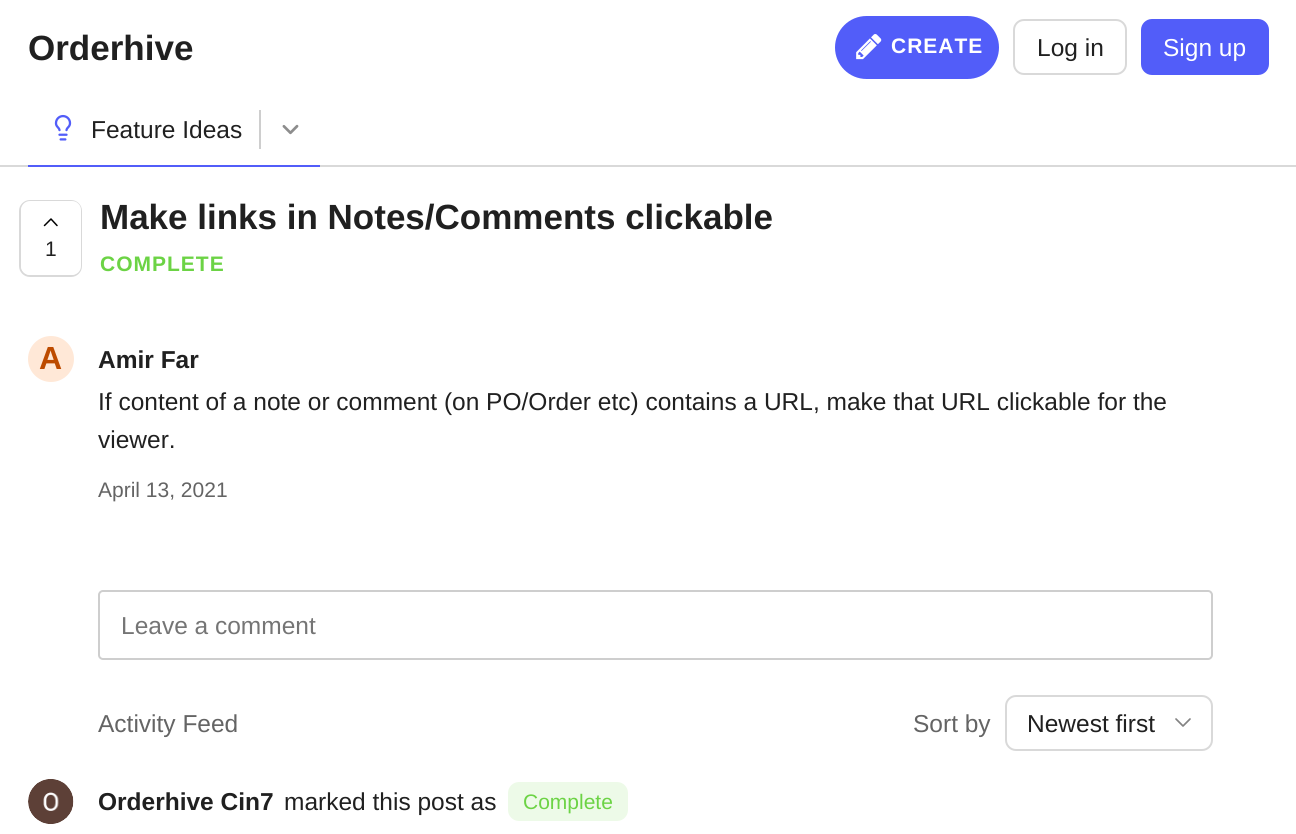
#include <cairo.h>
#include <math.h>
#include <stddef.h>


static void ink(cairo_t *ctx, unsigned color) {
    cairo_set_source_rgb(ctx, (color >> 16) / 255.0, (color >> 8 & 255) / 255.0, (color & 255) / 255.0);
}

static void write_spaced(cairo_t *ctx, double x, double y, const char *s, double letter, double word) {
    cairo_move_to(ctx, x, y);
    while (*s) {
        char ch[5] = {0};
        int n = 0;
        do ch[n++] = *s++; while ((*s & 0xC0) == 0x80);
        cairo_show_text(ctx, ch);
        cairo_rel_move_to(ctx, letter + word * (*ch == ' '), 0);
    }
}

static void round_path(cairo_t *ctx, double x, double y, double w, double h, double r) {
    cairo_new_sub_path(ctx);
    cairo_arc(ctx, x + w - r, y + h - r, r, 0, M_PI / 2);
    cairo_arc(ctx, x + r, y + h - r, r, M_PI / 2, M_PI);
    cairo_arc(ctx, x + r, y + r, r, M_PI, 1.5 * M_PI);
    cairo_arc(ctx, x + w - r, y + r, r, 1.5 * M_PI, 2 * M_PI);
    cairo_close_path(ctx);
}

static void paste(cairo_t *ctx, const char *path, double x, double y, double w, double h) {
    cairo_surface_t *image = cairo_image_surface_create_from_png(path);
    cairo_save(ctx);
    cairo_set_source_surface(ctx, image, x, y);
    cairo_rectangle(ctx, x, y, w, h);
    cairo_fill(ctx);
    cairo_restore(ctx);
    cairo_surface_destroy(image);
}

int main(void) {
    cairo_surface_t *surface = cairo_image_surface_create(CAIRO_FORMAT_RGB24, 1296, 834);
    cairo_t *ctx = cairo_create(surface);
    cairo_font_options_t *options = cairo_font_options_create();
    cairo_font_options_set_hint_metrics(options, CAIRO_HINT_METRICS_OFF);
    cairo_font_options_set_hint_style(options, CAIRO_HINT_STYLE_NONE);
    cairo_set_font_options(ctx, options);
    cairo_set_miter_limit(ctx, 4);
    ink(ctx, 0xFFFFFF);
    cairo_paint(ctx);
    ink(ctx, 0xD9D9D9);
    cairo_rectangle(ctx, 0, 165, 1296, 2);
    cairo_fill(ctx);
    cairo_select_font_face(ctx, "Liberation Sans", CAIRO_FONT_SLANT_NORMAL, CAIRO_FONT_WEIGHT_BOLD);
    cairo_set_font_size(ctx, 35);
    ink(ctx, 0x202020);
    cairo_move_to(ctx, 28, 60);
    cairo_show_text(ctx, "Orderhive");
    ink(ctx, 0x525DF9);
    round_path(ctx, 835, 16, 164, 63, 31.5);
    cairo_fill(ctx);
    paste(ctx, "media/1.png", 856, 34, 26, 26);
    cairo_set_font_size(ctx, 21);
    ink(ctx, 0xFFFFFF);
    write_spaced(ctx, 891, 53, "CREATE", 1, 0);
    round_path(ctx, 1014, 20, 112, 54, 10);
    ink(ctx, 0xD9D9D9);
    cairo_stroke(ctx);
    cairo_select_font_face(ctx, "Liberation Sans", CAIRO_FONT_SLANT_NORMAL, CAIRO_FONT_WEIGHT_NORMAL);
    cairo_set_font_size(ctx, 24.5);
    ink(ctx, 0x202020);
    cairo_move_to(ctx, 1037, 56);
    cairo_show_text(ctx, "Log in");
    ink(ctx, 0x525DF9);
    round_path(ctx, 1142, 20, 126, 54, 10);
    cairo_fill_preserve(ctx);
    cairo_stroke(ctx);
    ink(ctx, 0xFFFFFF);
    cairo_move_to(ctx, 1163, 56);
    cairo_show_text(ctx, "Sign up");
    ink(ctx, 0x525DF9);
    cairo_rectangle(ctx, 28, 165, 292, 2);
    cairo_fill(ctx);
    paste(ctx, "media/2.png", 54, 114, 18, 27);
    ink(ctx, 0xCECECE);
    cairo_rectangle(ctx, 259, 110, 2, 39);
    cairo_fill(ctx);
    ink(ctx, 0x202020);
    cairo_move_to(ctx, 91, 138);
    cairo_show_text(ctx, "Feature Ideas");
    paste(ctx, "media/3.png", 282, 124, 17, 11);
    round_path(ctx, 20, 201, 61, 75, 10);
    ink(ctx, 0xD9D9D9);
    cairo_stroke(ctx);
    ink(ctx, 0xFFFFFF);
    round_path(ctx, 21, 201, 60, 74, 9);
    cairo_fill(ctx);
    cairo_new_path(ctx);
    cairo_move_to(ctx, 57, 225.5);
    cairo_line_to(ctx, 51, 219);
    cairo_line_to(ctx, 44.5, 225.5);
    ink(ctx, 0x000000);
    cairo_set_line_width(ctx, 1.5);
    cairo_set_line_cap(ctx, CAIRO_LINE_CAP_ROUND);
    cairo_set_line_join(ctx, CAIRO_LINE_JOIN_ROUND);
    cairo_stroke(ctx);
    cairo_set_font_size(ctx, 21);
    ink(ctx, 0x202020);
    cairo_move_to(ctx, 45, 256);
    cairo_show_text(ctx, "1");
    cairo_select_font_face(ctx, "Liberation Sans", CAIRO_FONT_SLANT_NORMAL, CAIRO_FONT_WEIGHT_BOLD);
    cairo_set_font_size(ctx, 35);
    cairo_move_to(ctx, 100, 229);
    cairo_show_text(ctx, "Make links in Notes/Comments clickable");
    cairo_set_font_size(ctx, 21);
    ink(ctx, 0x6CD345);
    write_spaced(ctx, 100, 271, "COMPLETE", 1, 0);
    ink(ctx, 0xFFE8D7);
    cairo_new_path(ctx);
    cairo_arc(ctx, 51, 359, 23, 0, 2 * M_PI);
    cairo_fill(ctx);
    cairo_set_font_size(ctx, 32);
    ink(ctx, 0xBD4B00);
    cairo_move_to(ctx, 39, 369);
    cairo_show_text(ctx, "A");
    cairo_set_font_size(ctx, 24.5);
    ink(ctx, 0x202020);
    cairo_move_to(ctx, 98, 368);
    cairo_show_text(ctx, "Amir Far");
    cairo_select_font_face(ctx, "Liberation Sans", CAIRO_FONT_SLANT_NORMAL, CAIRO_FONT_WEIGHT_NORMAL);
    cairo_move_to(ctx, 98, 410);
    cairo_show_text(ctx, "If content of a note or comment (on PO/Order etc) contains a URL, make that URL clickable for the");
    cairo_move_to(ctx, 98, 448);
    cairo_show_text(ctx, "viewer.");
    cairo_set_font_size(ctx, 21);
    ink(ctx, 0x646464);
    cairo_move_to(ctx, 98, 497);
    cairo_show_text(ctx, "April 13, 2021");
    round_path(ctx, 99, 591, 1113, 68, 4);
    ink(ctx, 0xCECECE);
    cairo_set_line_width(ctx, 2);
    cairo_set_line_cap(ctx, CAIRO_LINE_CAP_BUTT);
    cairo_set_line_join(ctx, CAIRO_LINE_JOIN_MITER);
    cairo_stroke(ctx);
    cairo_set_font_size(ctx, 24.5);
    ink(ctx, 0x757575);
    cairo_move_to(ctx, 121, 634);
    cairo_show_text(ctx, "Leave a comment");
    ink(ctx, 0x646464);
    cairo_move_to(ctx, 98, 732);
    cairo_show_text(ctx, "Activity Feed");
    cairo_move_to(ctx, 913, 732);
    cairo_show_text(ctx, "Sort by");
    round_path(ctx, 1006, 696, 206, 54, 10);
    ink(ctx, 0xD9D9D9);
    cairo_stroke(ctx);
    ink(ctx, 0x202020);
    cairo_move_to(ctx, 1027, 732);
    cairo_show_text(ctx, "Newest first");
    cairo_new_path(ctx);
    cairo_move_to(ctx, 1176, 719);
    cairo_line_to(ctx, 1183, 726);
    cairo_line_to(ctx, 1190, 719);
    ink(ctx, 0x838383);
    cairo_set_line_width(ctx, 1.7);
    cairo_set_line_cap(ctx, CAIRO_LINE_CAP_ROUND);
    cairo_set_line_join(ctx, CAIRO_LINE_JOIN_ROUND);
    cairo_stroke(ctx);
    paste(ctx, "media/4.png", 28, 779, 46, 45);
    cairo_select_font_face(ctx, "Liberation Sans", CAIRO_FONT_SLANT_NORMAL, CAIRO_FONT_WEIGHT_BOLD);
    ink(ctx, 0x202020);
    cairo_move_to(ctx, 98, 810);
    cairo_show_text(ctx, "Orderhive Cin7");
    cairo_select_font_face(ctx, "Liberation Sans", CAIRO_FONT_SLANT_NORMAL, CAIRO_FONT_WEIGHT_NORMAL);
    cairo_move_to(ctx, 284, 810);
    cairo_show_text(ctx, "marked this post as");
    ink(ctx, 0xEDFAE8);
    round_path(ctx, 508, 782, 120, 39, 11);
    cairo_fill(ctx);
    cairo_set_font_size(ctx, 21);
    ink(ctx, 0x6CD345);
    cairo_move_to(ctx, 523, 809);
    cairo_show_text(ctx, "Complete");
    cairo_surface_write_to_png(surface, "image.png");
    cairo_font_options_destroy(options);
    cairo_destroy(ctx);
    cairo_surface_destroy(surface);
    return 0;
}
